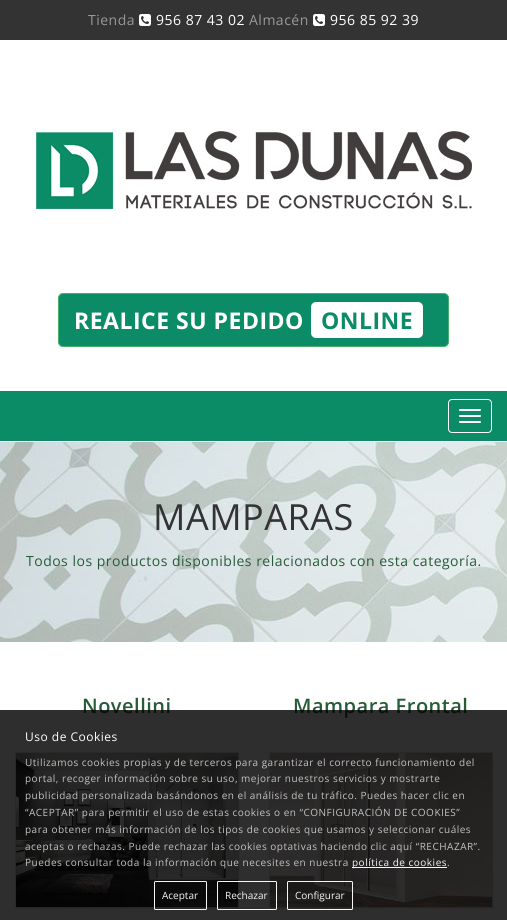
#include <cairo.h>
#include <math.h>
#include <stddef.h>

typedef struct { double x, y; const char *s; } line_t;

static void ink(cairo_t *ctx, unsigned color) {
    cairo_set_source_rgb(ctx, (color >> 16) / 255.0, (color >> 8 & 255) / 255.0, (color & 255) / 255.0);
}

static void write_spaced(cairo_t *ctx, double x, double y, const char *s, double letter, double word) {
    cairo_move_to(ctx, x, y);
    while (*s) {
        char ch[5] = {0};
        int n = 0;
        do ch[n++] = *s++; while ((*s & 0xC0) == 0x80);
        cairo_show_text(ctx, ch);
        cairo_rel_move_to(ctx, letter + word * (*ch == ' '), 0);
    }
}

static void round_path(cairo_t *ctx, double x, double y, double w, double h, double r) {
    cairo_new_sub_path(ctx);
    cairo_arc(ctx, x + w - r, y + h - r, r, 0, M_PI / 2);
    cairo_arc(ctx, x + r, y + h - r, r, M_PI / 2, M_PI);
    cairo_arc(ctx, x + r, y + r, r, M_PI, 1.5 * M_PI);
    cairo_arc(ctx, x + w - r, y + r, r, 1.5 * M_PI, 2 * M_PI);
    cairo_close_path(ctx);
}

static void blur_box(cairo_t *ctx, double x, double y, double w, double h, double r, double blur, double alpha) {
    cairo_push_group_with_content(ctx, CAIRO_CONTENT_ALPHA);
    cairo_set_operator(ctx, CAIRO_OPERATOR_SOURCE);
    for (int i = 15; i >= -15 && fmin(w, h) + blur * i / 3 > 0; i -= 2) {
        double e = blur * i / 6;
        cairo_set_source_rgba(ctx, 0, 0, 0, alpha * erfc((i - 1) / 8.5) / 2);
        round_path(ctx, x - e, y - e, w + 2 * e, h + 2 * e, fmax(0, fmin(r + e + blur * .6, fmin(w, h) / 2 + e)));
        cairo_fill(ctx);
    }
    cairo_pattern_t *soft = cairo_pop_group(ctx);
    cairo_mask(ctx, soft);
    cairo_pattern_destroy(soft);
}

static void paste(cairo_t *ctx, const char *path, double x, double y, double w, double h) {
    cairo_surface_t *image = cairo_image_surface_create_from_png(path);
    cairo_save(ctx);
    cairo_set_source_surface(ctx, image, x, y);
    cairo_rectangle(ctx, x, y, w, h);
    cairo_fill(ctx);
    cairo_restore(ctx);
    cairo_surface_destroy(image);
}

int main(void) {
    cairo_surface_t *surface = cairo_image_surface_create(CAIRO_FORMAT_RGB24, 507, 920);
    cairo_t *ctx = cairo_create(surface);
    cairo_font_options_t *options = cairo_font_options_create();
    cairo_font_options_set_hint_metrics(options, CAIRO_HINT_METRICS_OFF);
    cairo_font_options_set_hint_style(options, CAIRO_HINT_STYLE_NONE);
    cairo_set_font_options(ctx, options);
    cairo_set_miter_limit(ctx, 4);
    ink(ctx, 0xFFFFFF);
    cairo_paint(ctx);
    ink(ctx, 0x333333);
    cairo_rectangle(ctx, 0, 0, 507, 40);
    cairo_fill(ctx);
    cairo_select_font_face(ctx, "Open Sans", CAIRO_FONT_SLANT_NORMAL, CAIRO_FONT_WEIGHT_NORMAL);
    cairo_set_font_size(ctx, 14);
    ink(ctx, 0x999999);
    write_spaced(ctx, 88, 25, "Tienda", 0.5, 0);
    paste(ctx, "media/1.png", 139, 14, 12, 12);
    ink(ctx, 0xFFFFFF);
    write_spaced(ctx, 156, 25, "956 87 43 02", 0.5, 0);
    ink(ctx, 0x999999);
    write_spaced(ctx, 249, 25, "Almacén", 0.5, 0);
    paste(ctx, "media/1.png", 313, 14, 12, 12);
    ink(ctx, 0xFFFFFF);
    write_spaced(ctx, 330, 25, "956 85 92 39", 0.5, 0);
    paste(ctx, "media/2.png", 36, 131, 436, 78);
    ink(ctx, 0x0B8B66);
    round_path(ctx, 58.5, 293.5, 390, 53, 4.5);
    cairo_fill_preserve(ctx);
    ink(ctx, 0x47B06A);
    cairo_set_line_width(ctx, 1);
    cairo_stroke(ctx);
    cairo_select_font_face(ctx, "Open Sans", CAIRO_FONT_SLANT_NORMAL, CAIRO_FONT_WEIGHT_BOLD);
    cairo_set_font_size(ctx, 23);
    ink(ctx, 0xFFFFFF);
    write_spaced(ctx, 74, 329, "REALICE SU PEDIDO", 0.5, 0);
    round_path(ctx, 311, 302, 112, 36, 5);
    cairo_fill(ctx);
    ink(ctx, 0x0B8B66);
    write_spaced(ctx, 321, 329, "ONLINE", 0.5, 0);
    cairo_rectangle(ctx, 0, 391, 507, 50);
    cairo_fill(ctx);
    round_path(ctx, 448.5, 399.5, 43, 33, 3.5);
    ink(ctx, 0xFFFFFF);
    cairo_stroke(ctx);
    round_path(ctx, 459, 409, 22, 2, 1);
    cairo_fill(ctx);
    round_path(ctx, 459, 415, 22, 2, 1);
    cairo_fill(ctx);
    round_path(ctx, 459, 421, 22, 2, 1);
    cairo_fill(ctx);
    paste(ctx, "media/3.png", 0, 442, 507, 200);
    cairo_select_font_face(ctx, "Open Sans", CAIRO_FONT_SLANT_NORMAL, CAIRO_FONT_WEIGHT_NORMAL);
    cairo_set_font_size(ctx, 36);
    ink(ctx, 0x333333);
    write_spaced(ctx, 153, 530, "MAMPARAS", 0.5, 0);
    cairo_set_font_size(ctx, 14);
    ink(ctx, 0x265C36);
    write_spaced(ctx, 26, 566, "Todos los productos disponibles relacionados con esta categoría.", 0.5, 0);
    cairo_select_font_face(ctx, "Open Sans SemiBold", CAIRO_FONT_SLANT_NORMAL, CAIRO_FONT_WEIGHT_NORMAL);
    cairo_set_font_size(ctx, 20);
    write_spaced(ctx, 82, 713, "Novellini", 0.5, 0);
    ink(ctx, 0xCCCCCC);
    blur_box(ctx, 16, 753, 223, 155, 0, 0.5, 1);
    ink(ctx, 0xE2E2E2);
    cairo_rectangle(ctx, 15, 752, 223, 1);
    cairo_fill(ctx);
    cairo_rectangle(ctx, 15, 752, 1, 155);
    cairo_fill(ctx);
    paste(ctx, "media/4.png", 16, 753, 222, 154);
    ink(ctx, 0x265C36);
    write_spaced(ctx, 293, 713, "Mampara Frontal", 0.5, 0);
    ink(ctx, 0xCCCCCC);
    blur_box(ctx, 270, 753, 223, 155, 0, 0.5, 1);
    ink(ctx, 0xE2E2E2);
    cairo_rectangle(ctx, 269, 752, 223, 1);
    cairo_fill(ctx);
    cairo_rectangle(ctx, 269, 752, 1, 155);
    cairo_fill(ctx);
    paste(ctx, "media/5.png", 270, 753, 222, 154);
    cairo_set_source_rgba(ctx, 0, 0, 0, 0.82);
    cairo_rectangle(ctx, 0, 710, 507, 210);
    cairo_fill(ctx);
    cairo_select_font_face(ctx, "Open Sans", CAIRO_FONT_SLANT_NORMAL, CAIRO_FONT_WEIGHT_NORMAL);
    cairo_set_font_size(ctx, 12);
    ink(ctx, 0xFFFFFF);
    write_spaced(ctx, 25, 741, "Uso de Cookies", 0.5, 0);
    cairo_set_font_size(ctx, 10);
    ink(ctx, 0xC2C2C2);
    {
        static const line_t items[] = {
            {25, 766, "Utilizamos cookies propias y de terceros para garantizar el correcto funcionamiento del"},
            {25, 782, "portal, recoger información sobre su uso, mejorar nuestros servicios y mostrarte"},
            {25, 799, "publicidad personalizada basándonos en el análisis de tu tráfico. Puedes hacer clic en"},
            {25, 816, "“ACEPTAR” para permitir el uso de estas cookies o en “CONFIGURACIÓN DE COOKIES”"},
            {25, 833, "para obtener más información de los tipos de cookies que usamos y seleccionar cuáles"},
            {25, 850, "aceptas o rechazas. Puede rechazar las cookies optativas haciendo clic aquí “RECHAZAR”."},
            {25, 866, "Puedes consultar toda la información que necesites en nuestra"},
        };
        for (size_t i = 0; i < sizeof items / sizeof *items; i++) {
            write_spaced(ctx, items[i].x, items[i].y, items[i].s, 0.5, 0);
        }
    }
    cairo_set_source_rgba(ctx, 1, 1, 1, 0.96);
    cairo_rectangle(ctx, 352, 867, 95, 1);
    cairo_fill(ctx);
    ink(ctx, 0xF7F7F7);
    write_spaced(ctx, 352, 866, "política de cookies", 0.5, 0);
    ink(ctx, 0xC2C2C2);
    write_spaced(ctx, 447, 866, ".", 0.5, 0);
    round_path(ctx, 154.5, 881.5, 52, 28, 1);
    cairo_set_source_rgba(ctx, 1, 1, 1, 0.96);
    cairo_stroke(ctx);
    ink(ctx, 0xF7F7F7);
    cairo_move_to(ctx, 162, 899);
    cairo_show_text(ctx, "Aceptar");
    round_path(ctx, 217.5, 881.5, 59, 28, 1);
    cairo_set_source_rgba(ctx, 1, 1, 1, 0.96);
    cairo_stroke(ctx);
    ink(ctx, 0xF7F7F7);
    cairo_move_to(ctx, 225, 899);
    cairo_show_text(ctx, "Rechazar");
    round_path(ctx, 287.5, 881.5, 65, 28, 1);
    cairo_set_source_rgba(ctx, 1, 1, 1, 0.96);
    cairo_stroke(ctx);
    ink(ctx, 0xF7F7F7);
    cairo_move_to(ctx, 295, 899);
    cairo_show_text(ctx, "Configurar");
    cairo_surface_write_to_png(surface, "image.png");
    cairo_font_options_destroy(options);
    cairo_destroy(ctx);
    cairo_surface_destroy(surface);
    return 0;
}
